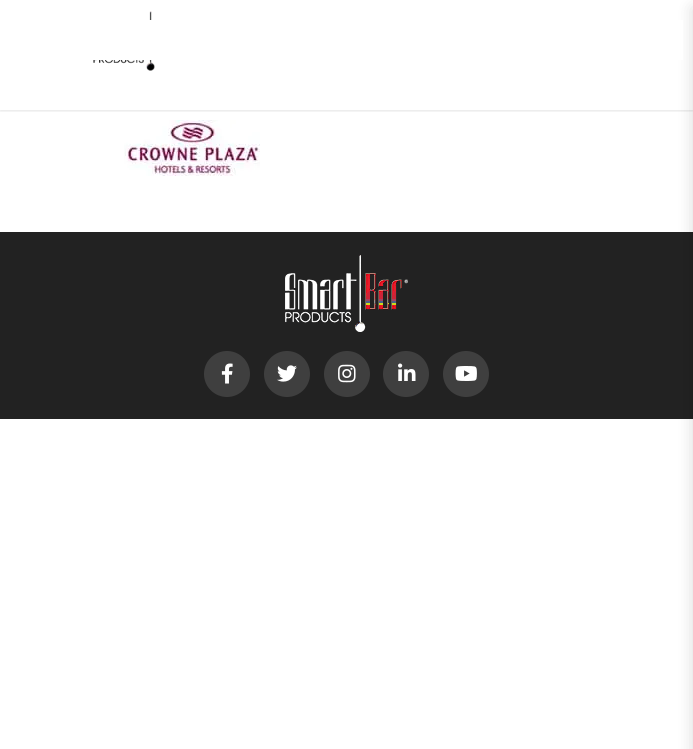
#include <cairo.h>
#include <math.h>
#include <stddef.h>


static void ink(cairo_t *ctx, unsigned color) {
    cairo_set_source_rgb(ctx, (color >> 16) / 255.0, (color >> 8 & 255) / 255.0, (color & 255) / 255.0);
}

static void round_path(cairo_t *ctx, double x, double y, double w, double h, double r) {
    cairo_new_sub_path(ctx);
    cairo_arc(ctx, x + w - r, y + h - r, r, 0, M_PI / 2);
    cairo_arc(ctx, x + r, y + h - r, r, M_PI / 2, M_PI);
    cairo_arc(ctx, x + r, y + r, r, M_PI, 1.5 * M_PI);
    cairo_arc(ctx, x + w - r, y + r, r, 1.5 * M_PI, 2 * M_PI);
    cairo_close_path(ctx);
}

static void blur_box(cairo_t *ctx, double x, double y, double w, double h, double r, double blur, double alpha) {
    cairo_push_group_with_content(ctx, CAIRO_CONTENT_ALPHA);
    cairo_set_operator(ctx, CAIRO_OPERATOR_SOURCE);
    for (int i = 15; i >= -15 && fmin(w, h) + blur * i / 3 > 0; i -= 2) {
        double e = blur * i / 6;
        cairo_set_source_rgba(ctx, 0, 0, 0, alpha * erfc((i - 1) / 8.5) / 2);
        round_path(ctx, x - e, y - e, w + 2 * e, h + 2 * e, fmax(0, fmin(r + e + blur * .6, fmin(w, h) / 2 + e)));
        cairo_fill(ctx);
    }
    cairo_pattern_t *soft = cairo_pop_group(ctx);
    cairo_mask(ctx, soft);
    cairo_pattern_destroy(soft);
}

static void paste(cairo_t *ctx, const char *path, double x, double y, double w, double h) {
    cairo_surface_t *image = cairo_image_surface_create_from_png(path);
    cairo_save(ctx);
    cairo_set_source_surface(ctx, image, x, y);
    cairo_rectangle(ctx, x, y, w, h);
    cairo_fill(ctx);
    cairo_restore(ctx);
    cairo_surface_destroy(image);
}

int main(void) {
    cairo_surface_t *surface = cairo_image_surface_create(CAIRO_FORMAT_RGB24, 693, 749);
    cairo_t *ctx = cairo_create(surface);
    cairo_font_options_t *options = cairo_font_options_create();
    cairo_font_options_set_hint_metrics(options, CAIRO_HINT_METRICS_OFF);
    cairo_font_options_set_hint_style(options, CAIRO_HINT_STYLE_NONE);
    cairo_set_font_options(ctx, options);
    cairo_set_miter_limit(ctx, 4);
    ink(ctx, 0xFFFFFF);
    cairo_paint(ctx);
    cairo_save(ctx);
    cairo_rectangle(ctx, 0, 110, 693, 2);
    cairo_clip(ctx);
    ink(ctx, 0x000000);
    blur_box(ctx, 0, 1, 693, 110, 0, 1.5, 0.11);
    cairo_restore(ctx);
    paste(ctx, "media/1.png", 93, 11, 62, 60);
    ink(ctx, 0x222222);
    cairo_rectangle(ctx, 0, 232, 693, 187);
    cairo_fill(ctx);
    ink(ctx, 0x000000);
    blur_box(ctx, 693, 8, 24, 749, 0, 8, 0.15);
    paste(ctx, "media/2.png", 124, 120, 136, 56);
    paste(ctx, "media/3.png", 285, 255, 123, 77);
    ink(ctx, 0x3F3F3F);
    cairo_arc(ctx, 227, 374, 23, 0, 2 * M_PI);
    cairo_fill(ctx);
    paste(ctx, "media/4.png", 221, 363, 12, 21);
    cairo_arc(ctx, 287, 374, 23, 0, 2 * M_PI);
    cairo_fill(ctx);
    paste(ctx, "media/5.png", 277, 365, 20, 17);
    cairo_arc(ctx, 347, 374, 23, 0, 2 * M_PI);
    cairo_fill(ctx);
    paste(ctx, "media/6.png", 338, 364, 18, 19);
    cairo_arc(ctx, 406, 374, 23, 0, 2 * M_PI);
    cairo_fill(ctx);
    paste(ctx, "media/7.png", 398, 363, 18, 18);
    cairo_arc(ctx, 466, 374, 23, 0, 2 * M_PI);
    cairo_fill(ctx);
    paste(ctx, "media/8.png", 455, 366, 22, 15);
    ink(ctx, 0xFFFFFF);
    cairo_rectangle(ctx, 93, 20, 590, 40);
    cairo_fill(ctx);
    cairo_surface_write_to_png(surface, "image.png");
    cairo_font_options_destroy(options);
    cairo_destroy(ctx);
    cairo_surface_destroy(surface);
    return 0;
}
